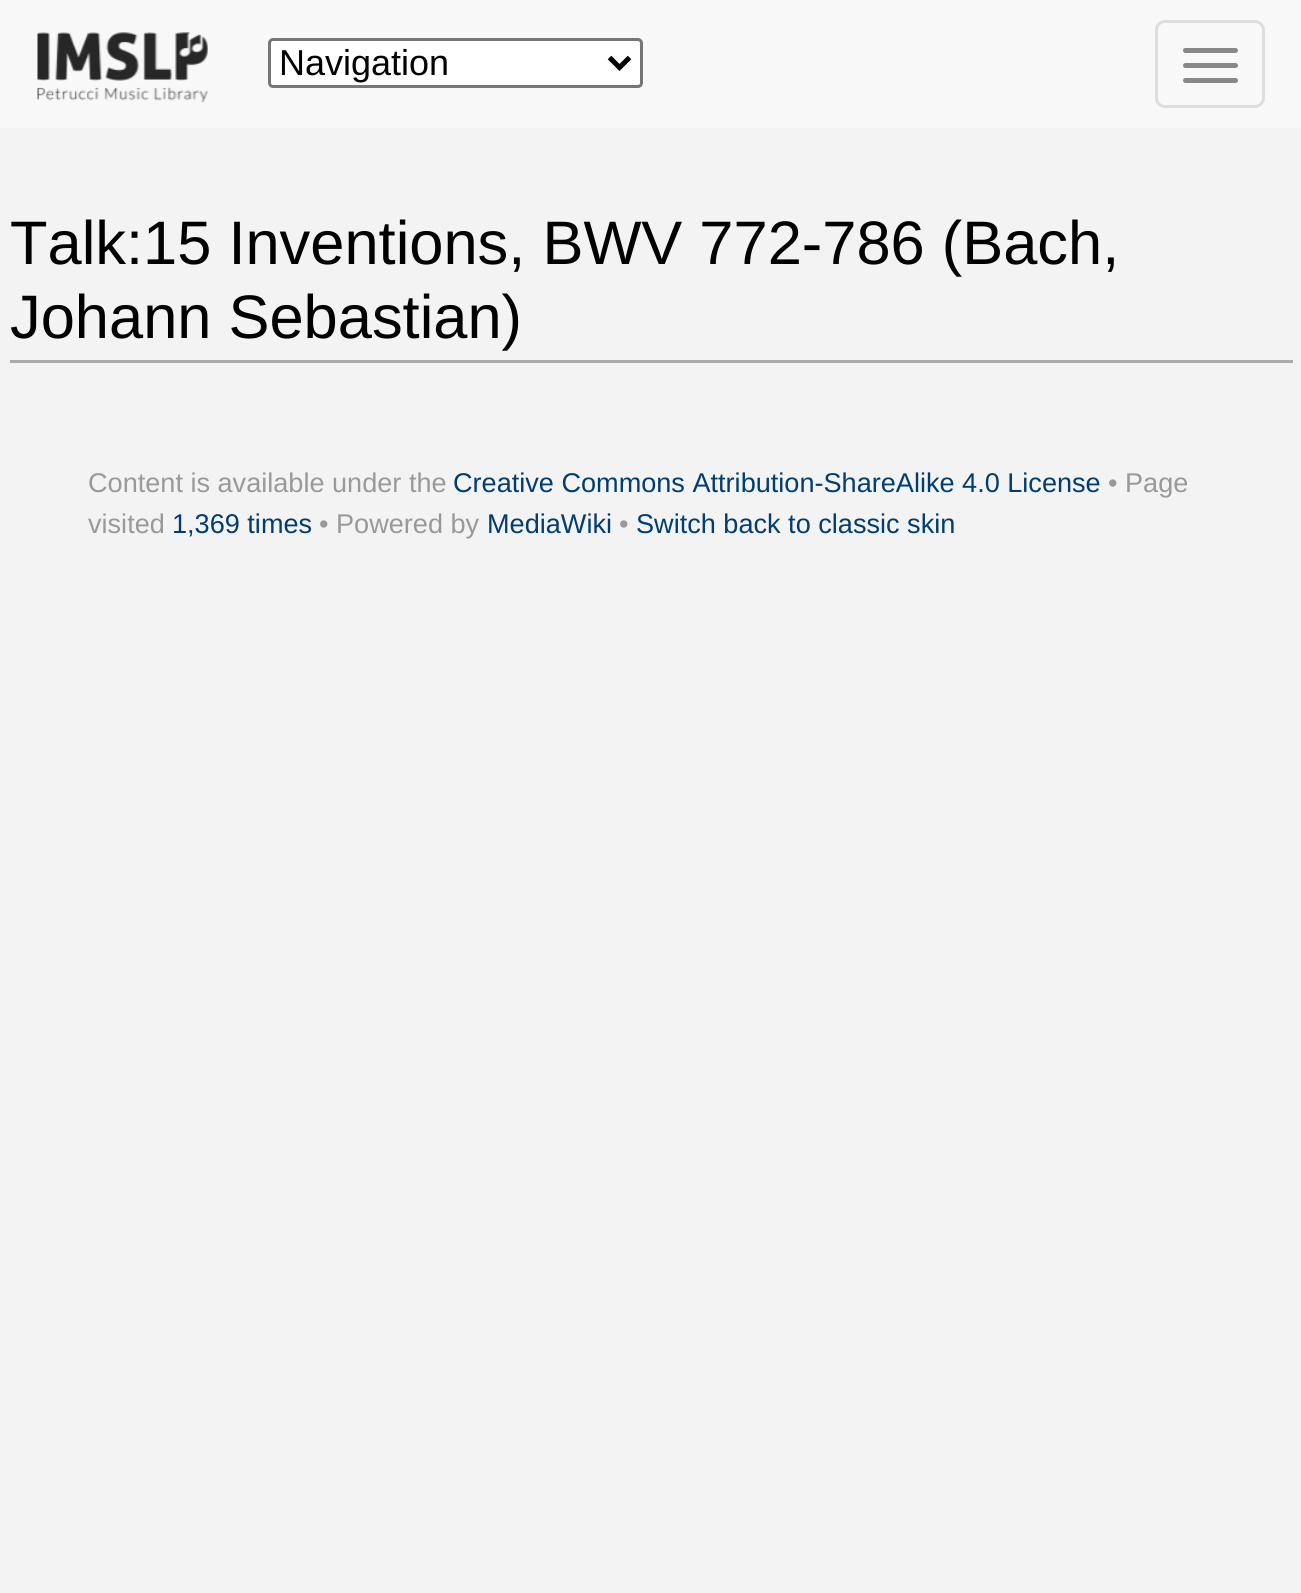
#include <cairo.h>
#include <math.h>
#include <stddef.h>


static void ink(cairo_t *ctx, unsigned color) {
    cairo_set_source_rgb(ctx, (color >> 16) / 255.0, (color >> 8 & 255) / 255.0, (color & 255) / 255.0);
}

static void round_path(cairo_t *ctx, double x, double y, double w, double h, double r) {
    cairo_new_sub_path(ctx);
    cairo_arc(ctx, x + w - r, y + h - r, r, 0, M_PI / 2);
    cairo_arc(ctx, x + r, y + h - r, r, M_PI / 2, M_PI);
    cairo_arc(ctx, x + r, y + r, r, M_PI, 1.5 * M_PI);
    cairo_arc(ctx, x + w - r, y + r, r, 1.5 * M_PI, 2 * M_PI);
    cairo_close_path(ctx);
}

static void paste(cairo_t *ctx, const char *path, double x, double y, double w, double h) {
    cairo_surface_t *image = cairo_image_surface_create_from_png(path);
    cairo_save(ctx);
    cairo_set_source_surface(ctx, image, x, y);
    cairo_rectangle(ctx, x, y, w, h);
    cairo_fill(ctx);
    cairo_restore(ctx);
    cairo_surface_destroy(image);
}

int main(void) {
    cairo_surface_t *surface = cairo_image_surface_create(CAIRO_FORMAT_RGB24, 1301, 1593);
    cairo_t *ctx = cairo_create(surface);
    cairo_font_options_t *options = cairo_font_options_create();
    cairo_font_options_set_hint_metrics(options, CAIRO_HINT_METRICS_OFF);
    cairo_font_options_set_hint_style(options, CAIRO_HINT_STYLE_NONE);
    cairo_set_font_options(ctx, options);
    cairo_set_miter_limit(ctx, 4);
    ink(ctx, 0xF3F3F3);
    cairo_paint(ctx);
    ink(ctx, 0xF8F8F8);
    cairo_rectangle(ctx, 0, 0, 1301, 128);
    cairo_fill(ctx);
    paste(ctx, "media/1.png", 37, 32, 171, 71);
    ink(ctx, 0xFFFFFF);
    round_path(ctx, 269.5, 39.5, 372, 47, 3.5);
    cairo_fill_preserve(ctx);
    ink(ctx, 0x767676);
    cairo_set_line_width(ctx, 3);
    cairo_stroke(ctx);
    cairo_new_path(ctx);
    cairo_move_to(ctx, 609.5, 57.5);
    cairo_line_to(ctx, 619.5, 67.5);
    cairo_line_to(ctx, 629.5, 57.5);
    ink(ctx, 0x000000);
    cairo_set_line_width(ctx, 5);
    cairo_stroke(ctx);
    cairo_select_font_face(ctx, "Liberation Sans", CAIRO_FONT_SLANT_NORMAL, CAIRO_FONT_WEIGHT_NORMAL);
    cairo_set_font_size(ctx, 36);
    cairo_move_to(ctx, 279, 75);
    cairo_show_text(ctx, "Navigation");
    round_path(ctx, 1156.5, 21.5, 107, 85, 8.5);
    ink(ctx, 0xDDDDDD);
    cairo_set_line_width(ctx, 3);
    cairo_stroke(ctx);
    ink(ctx, 0x888888);
    round_path(ctx, 1183, 48, 55, 5, 2.5);
    cairo_fill(ctx);
    round_path(ctx, 1183, 63, 55, 5, 2.5);
    cairo_fill(ctx);
    round_path(ctx, 1183, 78, 55, 5, 2.5);
    cairo_fill(ctx);
    ink(ctx, 0xAAAAAA);
    cairo_rectangle(ctx, 10, 360, 1283, 3);
    cairo_fill(ctx);
    cairo_set_font_size(ctx, 61.4);
    ink(ctx, 0x000000);
    cairo_move_to(ctx, 10, 264);
    cairo_show_text(ctx, "Talk:15 Inventions, BWV 772-786 (Bach,");
    cairo_move_to(ctx, 10, 338);
    cairo_show_text(ctx, "Johann Sebastian)");
    cairo_set_font_size(ctx, 27.1);
    ink(ctx, 0x999999);
    cairo_move_to(ctx, 88, 492);
    cairo_show_text(ctx, "Content is available under the");
    ink(ctx, 0x003D70);
    cairo_move_to(ctx, 453, 492);
    cairo_show_text(ctx, "Creative Commons Attribution-ShareAlike 4.0 License");
    ink(ctx, 0x999999);
    cairo_move_to(ctx, 1108, 492);
    cairo_show_text(ctx, "• Page");
    cairo_move_to(ctx, 88, 533);
    cairo_show_text(ctx, "visited");
    ink(ctx, 0x003D70);
    cairo_move_to(ctx, 172, 533);
    cairo_show_text(ctx, "1,369 times");
    ink(ctx, 0x999999);
    cairo_move_to(ctx, 319, 533);
    cairo_show_text(ctx, "• Powered by");
    ink(ctx, 0x003D70);
    cairo_move_to(ctx, 487, 533);
    cairo_show_text(ctx, "MediaWiki");
    ink(ctx, 0x999999);
    cairo_move_to(ctx, 619, 533);
    cairo_show_text(ctx, "•");
    ink(ctx, 0x003D70);
    cairo_move_to(ctx, 636, 533);
    cairo_show_text(ctx, "Switch back to classic skin");
    cairo_surface_write_to_png(surface, "image.png");
    cairo_font_options_destroy(options);
    cairo_destroy(ctx);
    cairo_surface_destroy(surface);
    return 0;
}
